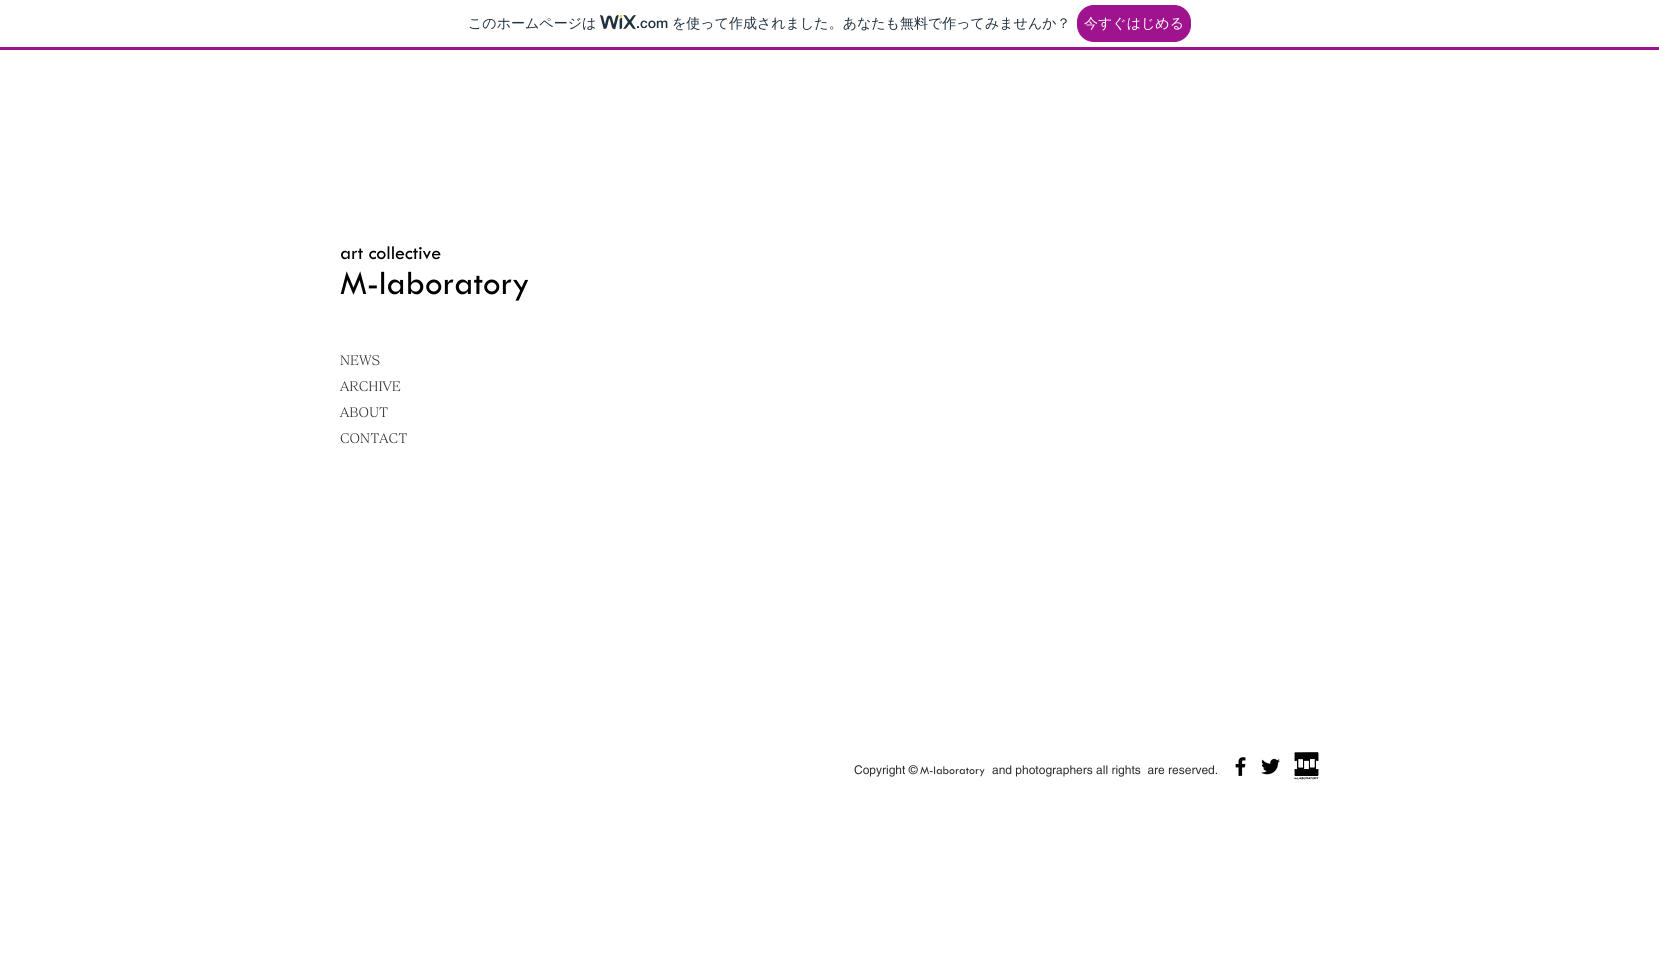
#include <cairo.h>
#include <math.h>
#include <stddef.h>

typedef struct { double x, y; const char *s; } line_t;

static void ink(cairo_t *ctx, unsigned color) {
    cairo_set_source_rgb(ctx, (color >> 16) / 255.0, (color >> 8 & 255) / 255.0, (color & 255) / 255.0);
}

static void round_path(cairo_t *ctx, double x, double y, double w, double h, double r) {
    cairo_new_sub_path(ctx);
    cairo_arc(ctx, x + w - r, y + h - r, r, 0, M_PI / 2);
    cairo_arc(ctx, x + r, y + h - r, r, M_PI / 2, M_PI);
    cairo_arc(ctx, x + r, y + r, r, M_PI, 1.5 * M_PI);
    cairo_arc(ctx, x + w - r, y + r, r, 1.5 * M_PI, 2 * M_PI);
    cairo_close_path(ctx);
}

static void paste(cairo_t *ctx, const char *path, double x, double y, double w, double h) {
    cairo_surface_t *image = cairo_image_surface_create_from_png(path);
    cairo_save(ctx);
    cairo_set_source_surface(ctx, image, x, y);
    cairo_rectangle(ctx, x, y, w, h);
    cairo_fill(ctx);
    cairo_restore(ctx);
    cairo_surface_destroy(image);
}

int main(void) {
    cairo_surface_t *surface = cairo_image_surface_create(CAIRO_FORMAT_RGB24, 1659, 957);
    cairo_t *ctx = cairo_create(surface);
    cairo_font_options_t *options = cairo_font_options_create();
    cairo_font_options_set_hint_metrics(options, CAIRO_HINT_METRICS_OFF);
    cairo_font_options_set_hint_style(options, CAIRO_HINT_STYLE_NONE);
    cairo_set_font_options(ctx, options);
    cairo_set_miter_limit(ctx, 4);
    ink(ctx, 0xFFFFFF);
    cairo_paint(ctx);
    ink(ctx, 0xA0138E);
    cairo_rectangle(ctx, 0, 47, 1659, 3);
    cairo_fill(ctx);
    cairo_select_font_face(ctx, "WenQuanYi Zen Hei Medium", CAIRO_FONT_SLANT_NORMAL, CAIRO_FONT_WEIGHT_NORMAL);
    cairo_set_font_size(ctx, 14);
    ink(ctx, 0x20303C);
    cairo_move_to(ctx, 468, 28);
    cairo_show_text(ctx, "このホームページは");
    paste(ctx, "media/1.png", 600, 15, 36, 15);
    cairo_select_font_face(ctx, "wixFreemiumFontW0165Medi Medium", CAIRO_FONT_SLANT_NORMAL, CAIRO_FONT_WEIGHT_NORMAL);
    cairo_move_to(ctx, 636, 28);
    cairo_show_text(ctx, ".com");
    cairo_select_font_face(ctx, "WenQuanYi Zen Hei Medium", CAIRO_FONT_SLANT_NORMAL, CAIRO_FONT_WEIGHT_NORMAL);
    cairo_move_to(ctx, 672, 28);
    cairo_show_text(ctx, "を使って作成されました。あなたも無料で作ってみませんか？");
    ink(ctx, 0xA0138E);
    round_path(ctx, 1077.5, 5.5, 113, 36, 16.5);
    cairo_fill_preserve(ctx);
    cairo_set_line_width(ctx, 1);
    cairo_stroke(ctx);
    ink(ctx, 0xFFFFFF);
    cairo_move_to(ctx, 1084, 28);
    cairo_show_text(ctx, "今すぐはじめる");
    cairo_select_font_face(ctx, "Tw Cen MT", CAIRO_FONT_SLANT_NORMAL, CAIRO_FONT_WEIGHT_NORMAL);
    cairo_set_font_size(ctx, 20);
    ink(ctx, 0x000000);
    cairo_move_to(ctx, 340, 259);
    cairo_show_text(ctx, "art collective");
    cairo_set_font_size(ctx, 35);
    cairo_move_to(ctx, 340, 294);
    cairo_show_text(ctx, "M-laboratory");
    cairo_select_font_face(ctx, "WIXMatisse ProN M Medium", CAIRO_FONT_SLANT_NORMAL, CAIRO_FONT_WEIGHT_NORMAL);
    cairo_set_font_size(ctx, 13);
    ink(ctx, 0x2F2E2E);
    {
        static const line_t items[] = {
            {340, 365, "NEWS"},
            {340, 391, "ARCHIVE"},
            {340, 417, "ABOUT"},
            {340, 443, "CONTACT"},
        };
        for (size_t i = 0; i < sizeof items / sizeof *items; i++) {
            cairo_move_to(ctx, items[i].x, items[i].y);
            cairo_show_text(ctx, items[i].s);
        }
    }
    cairo_select_font_face(ctx, "helvetica", CAIRO_FONT_SLANT_NORMAL, CAIRO_FONT_WEIGHT_NORMAL);
    cairo_set_font_size(ctx, 12);
    cairo_move_to(ctx, 854, 774);
    cairo_show_text(ctx, "Copyright ©");
    cairo_select_font_face(ctx, "Tw Cen MT", CAIRO_FONT_SLANT_NORMAL, CAIRO_FONT_WEIGHT_NORMAL);
    cairo_move_to(ctx, 920, 774);
    cairo_show_text(ctx, "M-laboratory");
    cairo_select_font_face(ctx, "helvetica", CAIRO_FONT_SLANT_NORMAL, CAIRO_FONT_WEIGHT_NORMAL);
    cairo_move_to(ctx, 992, 774);
    cairo_show_text(ctx, "and photographers all rights  are reserved.");
    paste(ctx, "media/2.png", 1235, 757, 11, 20);
    paste(ctx, "media/3.png", 1261, 758, 19, 17);
    paste(ctx, "media/4.png", 1293, 752, 27, 30);
    cairo_surface_write_to_png(surface, "image.png");
    cairo_font_options_destroy(options);
    cairo_destroy(ctx);
    cairo_surface_destroy(surface);
    return 0;
}
